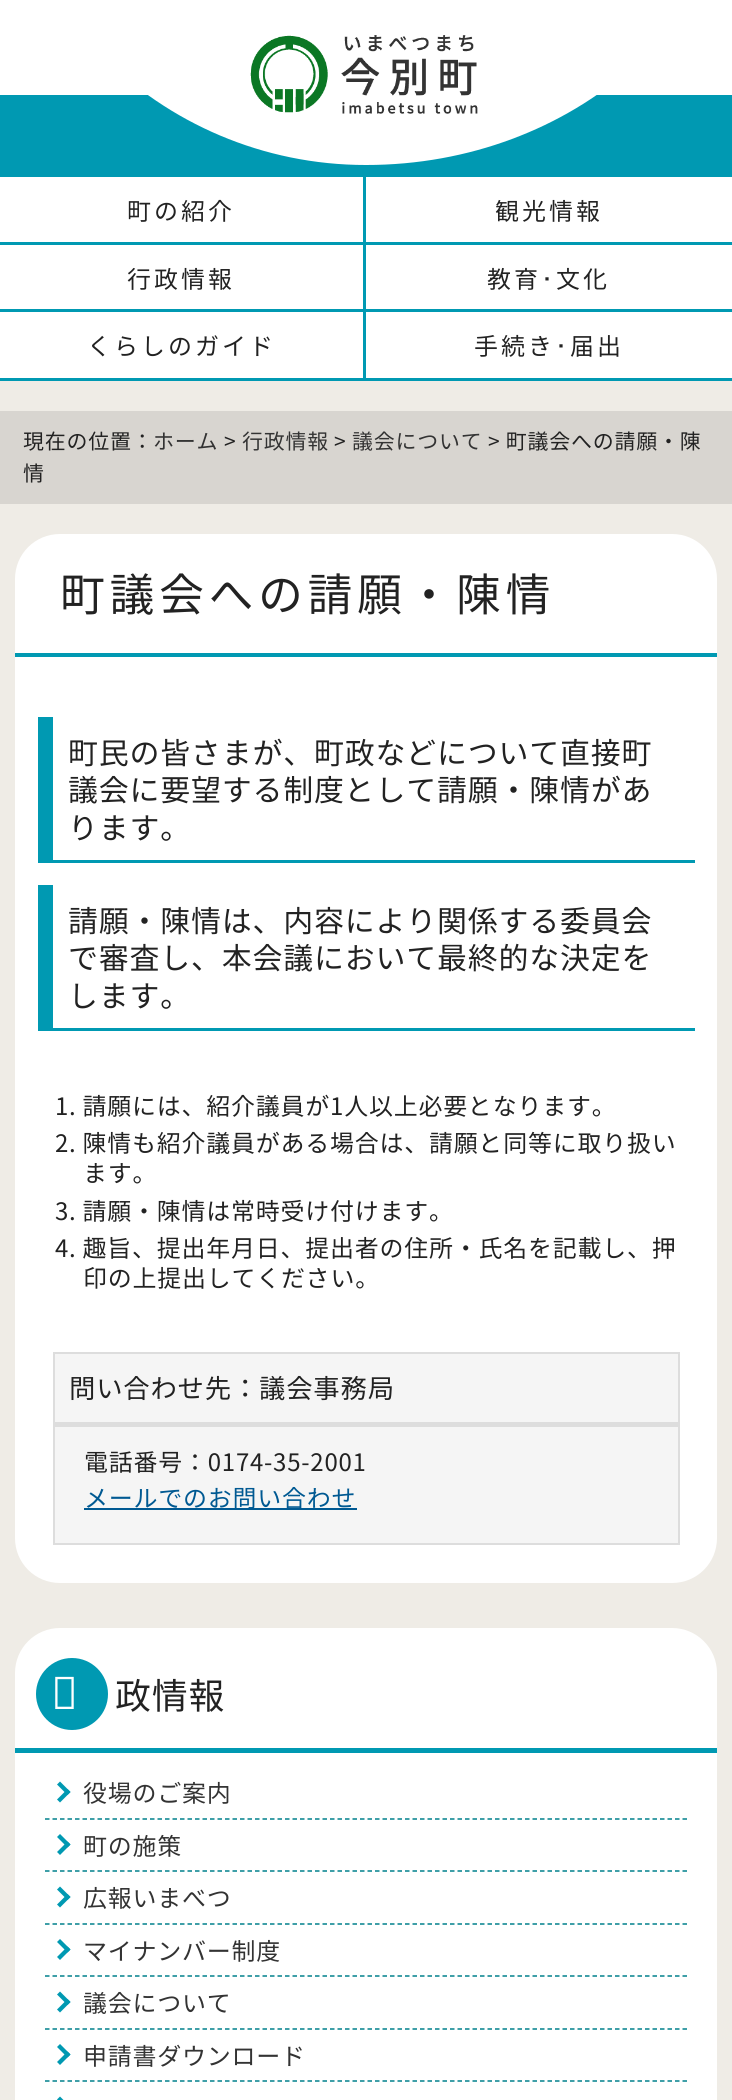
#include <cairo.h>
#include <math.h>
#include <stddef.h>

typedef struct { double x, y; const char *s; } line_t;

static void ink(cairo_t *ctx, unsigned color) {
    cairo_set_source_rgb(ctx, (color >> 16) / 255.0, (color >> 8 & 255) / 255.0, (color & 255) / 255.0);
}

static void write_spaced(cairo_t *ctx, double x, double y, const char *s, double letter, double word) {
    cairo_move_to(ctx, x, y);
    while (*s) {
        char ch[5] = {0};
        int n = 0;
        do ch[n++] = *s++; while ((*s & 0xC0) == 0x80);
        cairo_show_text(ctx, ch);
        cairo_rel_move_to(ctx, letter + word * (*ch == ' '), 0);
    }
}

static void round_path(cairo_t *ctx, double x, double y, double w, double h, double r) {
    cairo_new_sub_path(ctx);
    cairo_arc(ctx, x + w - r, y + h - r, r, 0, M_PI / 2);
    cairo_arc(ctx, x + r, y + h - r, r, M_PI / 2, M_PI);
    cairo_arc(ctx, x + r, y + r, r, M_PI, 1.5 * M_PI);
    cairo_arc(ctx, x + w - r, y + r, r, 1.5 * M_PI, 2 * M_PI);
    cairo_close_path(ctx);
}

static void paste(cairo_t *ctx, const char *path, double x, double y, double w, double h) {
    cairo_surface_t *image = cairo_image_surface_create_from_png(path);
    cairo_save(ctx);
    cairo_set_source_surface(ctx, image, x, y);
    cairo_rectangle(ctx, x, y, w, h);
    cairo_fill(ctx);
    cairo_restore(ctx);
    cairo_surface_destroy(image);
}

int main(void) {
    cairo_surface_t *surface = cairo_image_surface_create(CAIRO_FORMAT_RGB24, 732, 2100);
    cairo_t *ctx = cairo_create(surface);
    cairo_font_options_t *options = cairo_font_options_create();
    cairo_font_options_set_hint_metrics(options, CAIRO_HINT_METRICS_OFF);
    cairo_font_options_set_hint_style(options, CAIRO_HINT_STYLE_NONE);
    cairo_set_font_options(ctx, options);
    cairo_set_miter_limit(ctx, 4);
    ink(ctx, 0xEFECE6);
    cairo_paint(ctx);
    ink(ctx, 0xFFFFFF);
    cairo_rectangle(ctx, 0, 0, 732, 378);
    cairo_fill(ctx);
    ink(ctx, 0x0099B2);
    cairo_rectangle(ctx, 0, 95, 732, 82);
    cairo_fill(ctx);
    ink(ctx, 0xFFFFFF);
    cairo_new_path(ctx);
    cairo_move_to(ctx, -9, -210);
    cairo_line_to(ctx, 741, -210);
    cairo_line_to(ctx, 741, -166);
    cairo_curve_to(ctx, 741, 17, 573, 165, 366, 165);
    cairo_curve_to(ctx, 159, 165, -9, -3, -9, -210);
    cairo_close_path(ctx);
    cairo_fill(ctx);
    paste(ctx, "media/1.png", 250, 35, 228, 79);
    ink(ctx, 0x0099B2);
    cairo_rectangle(ctx, 363, 177, 3, 204);
    cairo_fill(ctx);
    cairo_rectangle(ctx, 0, 242, 732, 3);
    cairo_fill(ctx);
    cairo_select_font_face(ctx, "Noto Sans JP", CAIRO_FONT_SLANT_NORMAL, CAIRO_FONT_WEIGHT_NORMAL);
    cairo_set_font_size(ctx, 24);
    ink(ctx, 0x222222);
    write_spaced(ctx, 127, 220, "町の紹介", 3, 0);
    write_spaced(ctx, 495, 220, "観光情報", 3, 0);
    ink(ctx, 0x0099B2);
    cairo_rectangle(ctx, 0, 309, 732, 3);
    cairo_fill(ctx);
    ink(ctx, 0x222222);
    write_spaced(ctx, 127, 288, "行政情報", 3, 0);
    write_spaced(ctx, 487, 288, "教育", 3, 0);
    cairo_select_font_face(ctx, "IPAPGothic", CAIRO_FONT_SLANT_NORMAL, CAIRO_FONT_WEIGHT_NORMAL);
    write_spaced(ctx, 541, 288, "･", 3, 0);
    cairo_select_font_face(ctx, "Noto Sans JP", CAIRO_FONT_SLANT_NORMAL, CAIRO_FONT_WEIGHT_NORMAL);
    write_spaced(ctx, 556, 288, "文化", 3, 0);
    ink(ctx, 0x0099B2);
    cairo_rectangle(ctx, 0, 378, 732, 3);
    cairo_fill(ctx);
    ink(ctx, 0x222222);
    write_spaced(ctx, 87, 355, "くらしのガイド", 3, 0);
    write_spaced(ctx, 474, 355, "手続き", 3, 0);
    cairo_select_font_face(ctx, "IPAPGothic", CAIRO_FONT_SLANT_NORMAL, CAIRO_FONT_WEIGHT_NORMAL);
    write_spaced(ctx, 555, 355, "･", 3, 0);
    cairo_select_font_face(ctx, "Noto Sans JP", CAIRO_FONT_SLANT_NORMAL, CAIRO_FONT_WEIGHT_NORMAL);
    write_spaced(ctx, 570, 355, "届出", 3, 0);
    ink(ctx, 0xD8D5D0);
    cairo_rectangle(ctx, 0, 411, 732, 93);
    cairo_fill(ctx);
    cairo_set_font_size(ctx, 21);
    ink(ctx, 0x222222);
    write_spaced(ctx, 23, 449, "現在の位置：", 0.75, 0);
    ink(ctx, 0x333333);
    write_spaced(ctx, 153, 449, "ホーム", 0.75, 0);
    ink(ctx, 0x222222);
    write_spaced(ctx, 224, 449, ">", 0.75, 0);
    ink(ctx, 0x333333);
    write_spaced(ctx, 242, 449, "行政情報", 0.75, 0);
    ink(ctx, 0x222222);
    write_spaced(ctx, 334, 449, ">", 0.75, 0);
    ink(ctx, 0x333333);
    write_spaced(ctx, 352, 449, "議会について", 0.75, 0);
    ink(ctx, 0x222222);
    write_spaced(ctx, 488, 449, "> 町議会への請願・陳", 0.75, 0);
    write_spaced(ctx, 23, 481, "情", 0.75, 0);
    ink(ctx, 0xFFFFFF);
    cairo_new_path(ctx);
    cairo_move_to(ctx, 60, 534);
    cairo_line_to(ctx, 672, 534);
    cairo_curve_to(ctx, 697, 534, 717, 554, 717, 579);
    cairo_line_to(ctx, 717, 657);
    cairo_line_to(ctx, 15, 657);
    cairo_line_to(ctx, 15, 579);
    cairo_curve_to(ctx, 15, 554, 35, 534, 60, 534);
    cairo_close_path(ctx);
    cairo_fill(ctx);
    ink(ctx, 0x0099B2);
    cairo_rectangle(ctx, 15, 653, 702, 4);
    cairo_fill(ctx);
    cairo_set_font_size(ctx, 45);
    ink(ctx, 0x222222);
    write_spaced(ctx, 60, 611, "町議会への請願・陳情", 4.5, 0);
    ink(ctx, 0xFFFFFF);
    cairo_new_path(ctx);
    cairo_move_to(ctx, 15, 657);
    cairo_line_to(ctx, 717, 657);
    cairo_line_to(ctx, 717, 1538);
    cairo_curve_to(ctx, 717, 1563, 697, 1583, 672, 1583);
    cairo_line_to(ctx, 60, 1583);
    cairo_curve_to(ctx, 35, 1583, 15, 1563, 15, 1538);
    cairo_close_path(ctx);
    cairo_fill(ctx);
    ink(ctx, 0x0099B2);
    cairo_rectangle(ctx, 53, 860, 642, 3);
    cairo_fill(ctx);
    cairo_rectangle(ctx, 38, 717, 15, 146);
    cairo_fill(ctx);
    cairo_set_font_size(ctx, 30);
    ink(ctx, 0x222222);
    {
        static const line_t items[] = {
            {68, 764, "町民の皆さまが、町政などについて直接町"},
            {68, 801, "議会に要望する制度として請願・陳情があ"},
            {68, 839, "ります。"},
        };
        for (size_t i = 0; i < sizeof items / sizeof *items; i++) {
            write_spaced(ctx, items[i].x, items[i].y, items[i].s, 0.75, 0);
        }
    }
    ink(ctx, 0x0099B2);
    cairo_rectangle(ctx, 53, 1028, 642, 3);
    cairo_fill(ctx);
    cairo_rectangle(ctx, 38, 885, 15, 146);
    cairo_fill(ctx);
    ink(ctx, 0x222222);
    {
        static const line_t items[] = {
            {68, 932, "請願・陳情は、内容により関係する委員会"},
            {68, 969, "で審査し、本会議において最終的な決定を"},
            {68, 1007, "します。"},
        };
        for (size_t i = 0; i < sizeof items / sizeof *items; i++) {
            write_spaced(ctx, items[i].x, items[i].y, items[i].s, 0.75, 0);
        }
    }
    cairo_set_font_size(ctx, 24);
    {
        static const line_t items[] = {
            {55, 1115, "1. 請願には、紹介議員が1人以上必要となります。"},
            {55, 1152, "2. 陳情も紹介議員がある場合は、請願と同等に取り扱い"},
            {83, 1182, "ます。"},
            {55, 1220, "3. 請願・陳情は常時受け付けます。"},
            {55, 1257, "4. 趣旨、提出年月日、提出者の住所・氏名を記載し、押"},
            {83, 1287, "印の上提出してください。"},
        };
        for (size_t i = 0; i < sizeof items / sizeof *items; i++) {
            write_spaced(ctx, items[i].x, items[i].y, items[i].s, 0.75, 0);
        }
    }
    ink(ctx, 0xF5F5F5);
    cairo_rectangle(ctx, 54, 1353, 625, 191);
    cairo_fill_preserve(ctx);
    ink(ctx, 0xDDDDDD);
    cairo_stroke(ctx);
    cairo_rectangle(ctx, 54, 1422, 624, 5);
    cairo_fill(ctx);
    cairo_set_font_size(ctx, 26.4);
    ink(ctx, 0x222222);
    write_spaced(ctx, 69, 1398, "問い合わせ先：議会事務局", 0.75, 0);
    cairo_set_font_size(ctx, 24);
    write_spaced(ctx, 84, 1471, "電話番号：0174-35-2001", 0.75, 0);
    ink(ctx, 0x005992);
    cairo_rectangle(ctx, 84, 1508, 273, 2);
    cairo_fill(ctx);
    write_spaced(ctx, 84, 1507, "メールでのお問い合わせ", 0.75, 0);
    ink(ctx, 0xFFFFFF);
    round_path(ctx, 15, 1628, 702, 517, 45);
    cairo_fill(ctx);
    ink(ctx, 0x0099B2);
    cairo_arc(ctx, 72, 1694, 36, 0, 2 * M_PI);
    cairo_fill(ctx);
    cairo_rectangle(ctx, 15, 1748, 702, 5);
    cairo_fill(ctx);
    cairo_select_font_face(ctx, "Noto Sans", CAIRO_FONT_SLANT_NORMAL, CAIRO_FONT_WEIGHT_NORMAL);
    cairo_set_font_size(ctx, 45);
    ink(ctx, 0xFFFFFF);
    write_spaced(ctx, 51, 1709, "行", 0.75, 0);
    cairo_select_font_face(ctx, "Noto Sans JP", CAIRO_FONT_SLANT_NORMAL, CAIRO_FONT_WEIGHT_NORMAL);
    cairo_set_font_size(ctx, 36);
    ink(ctx, 0x222222);
    write_spaced(ctx, 115, 1709, "政情報", 0.75, 0);
    cairo_new_path(ctx);
    cairo_move_to(ctx, 45, 1819);
    cairo_line_to(ctx, 687, 1819);
    ink(ctx, 0x007F8C);
    cairo_set_line_width(ctx, 1.5);
    cairo_set_dash(ctx, (double[]){4.5, 3}, 2, 0);
    cairo_stroke(ctx);
    ink(ctx, 0x0099B2);
    cairo_new_path(ctx);
    cairo_move_to(ctx, 67.5, 1795);
    cairo_line_to(ctx, 57, 1784.5);
    cairo_line_to(ctx, 60, 1781.5);
    cairo_line_to(ctx, 70.5, 1792);
    cairo_close_path(ctx);
    cairo_fill(ctx);
    cairo_new_path(ctx);
    cairo_move_to(ctx, 60, 1802.5);
    cairo_line_to(ctx, 57, 1799.5);
    cairo_line_to(ctx, 67.5, 1789);
    cairo_line_to(ctx, 70.5, 1792);
    cairo_close_path(ctx);
    cairo_fill(ctx);
    cairo_set_font_size(ctx, 24);
    ink(ctx, 0x333333);
    write_spaced(ctx, 83, 1802, "役場のご案内", 0.75, 0);
    cairo_new_path(ctx);
    cairo_move_to(ctx, 45, 1871);
    cairo_line_to(ctx, 687, 1871);
    ink(ctx, 0x007F8C);
    cairo_stroke(ctx);
    ink(ctx, 0x0099B2);
    cairo_new_path(ctx);
    cairo_move_to(ctx, 67.5, 1847.5);
    cairo_line_to(ctx, 57, 1837);
    cairo_line_to(ctx, 60, 1834);
    cairo_line_to(ctx, 70.5, 1844.5);
    cairo_close_path(ctx);
    cairo_fill(ctx);
    cairo_new_path(ctx);
    cairo_move_to(ctx, 60, 1855);
    cairo_line_to(ctx, 57, 1852);
    cairo_line_to(ctx, 67.5, 1841.5);
    cairo_line_to(ctx, 70.5, 1844.5);
    cairo_close_path(ctx);
    cairo_fill(ctx);
    ink(ctx, 0x333333);
    write_spaced(ctx, 83, 1855, "町の施策", 0.75, 0);
    cairo_new_path(ctx);
    cairo_move_to(ctx, 45, 1924);
    cairo_line_to(ctx, 687, 1924);
    ink(ctx, 0x007F8C);
    cairo_stroke(ctx);
    ink(ctx, 0x0099B2);
    cairo_new_path(ctx);
    cairo_move_to(ctx, 67.5, 1900);
    cairo_line_to(ctx, 57, 1889.5);
    cairo_line_to(ctx, 60, 1886.5);
    cairo_line_to(ctx, 70.5, 1897);
    cairo_close_path(ctx);
    cairo_fill(ctx);
    cairo_new_path(ctx);
    cairo_move_to(ctx, 60, 1907.5);
    cairo_line_to(ctx, 57, 1904.5);
    cairo_line_to(ctx, 67.5, 1894);
    cairo_line_to(ctx, 70.5, 1897);
    cairo_close_path(ctx);
    cairo_fill(ctx);
    ink(ctx, 0x333333);
    write_spaced(ctx, 83, 1907, "広報いまべつ", 0.75, 0);
    cairo_new_path(ctx);
    cairo_move_to(ctx, 45, 1976);
    cairo_line_to(ctx, 687, 1976);
    ink(ctx, 0x007F8C);
    cairo_stroke(ctx);
    ink(ctx, 0x0099B2);
    cairo_new_path(ctx);
    cairo_move_to(ctx, 67.5, 1952.5);
    cairo_line_to(ctx, 57, 1942);
    cairo_line_to(ctx, 60, 1939);
    cairo_line_to(ctx, 70.5, 1949.5);
    cairo_close_path(ctx);
    cairo_fill(ctx);
    cairo_new_path(ctx);
    cairo_move_to(ctx, 60, 1960);
    cairo_line_to(ctx, 57, 1957);
    cairo_line_to(ctx, 67.5, 1946.5);
    cairo_line_to(ctx, 70.5, 1949.5);
    cairo_close_path(ctx);
    cairo_fill(ctx);
    ink(ctx, 0x333333);
    write_spaced(ctx, 83, 1960, "マイナンバー制度", 0.75, 0);
    cairo_new_path(ctx);
    cairo_move_to(ctx, 45, 2029);
    cairo_line_to(ctx, 687, 2029);
    ink(ctx, 0x007F8C);
    cairo_stroke(ctx);
    ink(ctx, 0x0099B2);
    cairo_new_path(ctx);
    cairo_move_to(ctx, 67.5, 2005);
    cairo_line_to(ctx, 57, 1994.5);
    cairo_line_to(ctx, 60, 1991.5);
    cairo_line_to(ctx, 70.5, 2002);
    cairo_close_path(ctx);
    cairo_fill(ctx);
    cairo_new_path(ctx);
    cairo_move_to(ctx, 60, 2012.5);
    cairo_line_to(ctx, 57, 2009.5);
    cairo_line_to(ctx, 67.5, 1999);
    cairo_line_to(ctx, 70.5, 2002);
    cairo_close_path(ctx);
    cairo_fill(ctx);
    ink(ctx, 0x333333);
    write_spaced(ctx, 83, 2012, "議会について", 0.75, 0);
    cairo_new_path(ctx);
    cairo_move_to(ctx, 45, 2081);
    cairo_line_to(ctx, 687, 2081);
    ink(ctx, 0x007F8C);
    cairo_stroke(ctx);
    ink(ctx, 0x0099B2);
    cairo_new_path(ctx);
    cairo_move_to(ctx, 67.5, 2057.5);
    cairo_line_to(ctx, 57, 2047);
    cairo_line_to(ctx, 60, 2044);
    cairo_line_to(ctx, 70.5, 2054.5);
    cairo_close_path(ctx);
    cairo_fill(ctx);
    cairo_new_path(ctx);
    cairo_move_to(ctx, 60, 2065);
    cairo_line_to(ctx, 57, 2062);
    cairo_line_to(ctx, 67.5, 2051.5);
    cairo_line_to(ctx, 70.5, 2054.5);
    cairo_close_path(ctx);
    cairo_move_to(ctx, 67.5, 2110);
    cairo_line_to(ctx, 57, 2099.5);
    cairo_line_to(ctx, 60, 2096.5);
    cairo_line_to(ctx, 70.5, 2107);
    cairo_close_path(ctx);
    cairo_fill(ctx);
    ink(ctx, 0x333333);
    write_spaced(ctx, 83, 2065, "申請書ダウンロード", 0.75, 0);
    cairo_surface_write_to_png(surface, "image.png");
    cairo_font_options_destroy(options);
    cairo_destroy(ctx);
    cairo_surface_destroy(surface);
    return 0;
}
